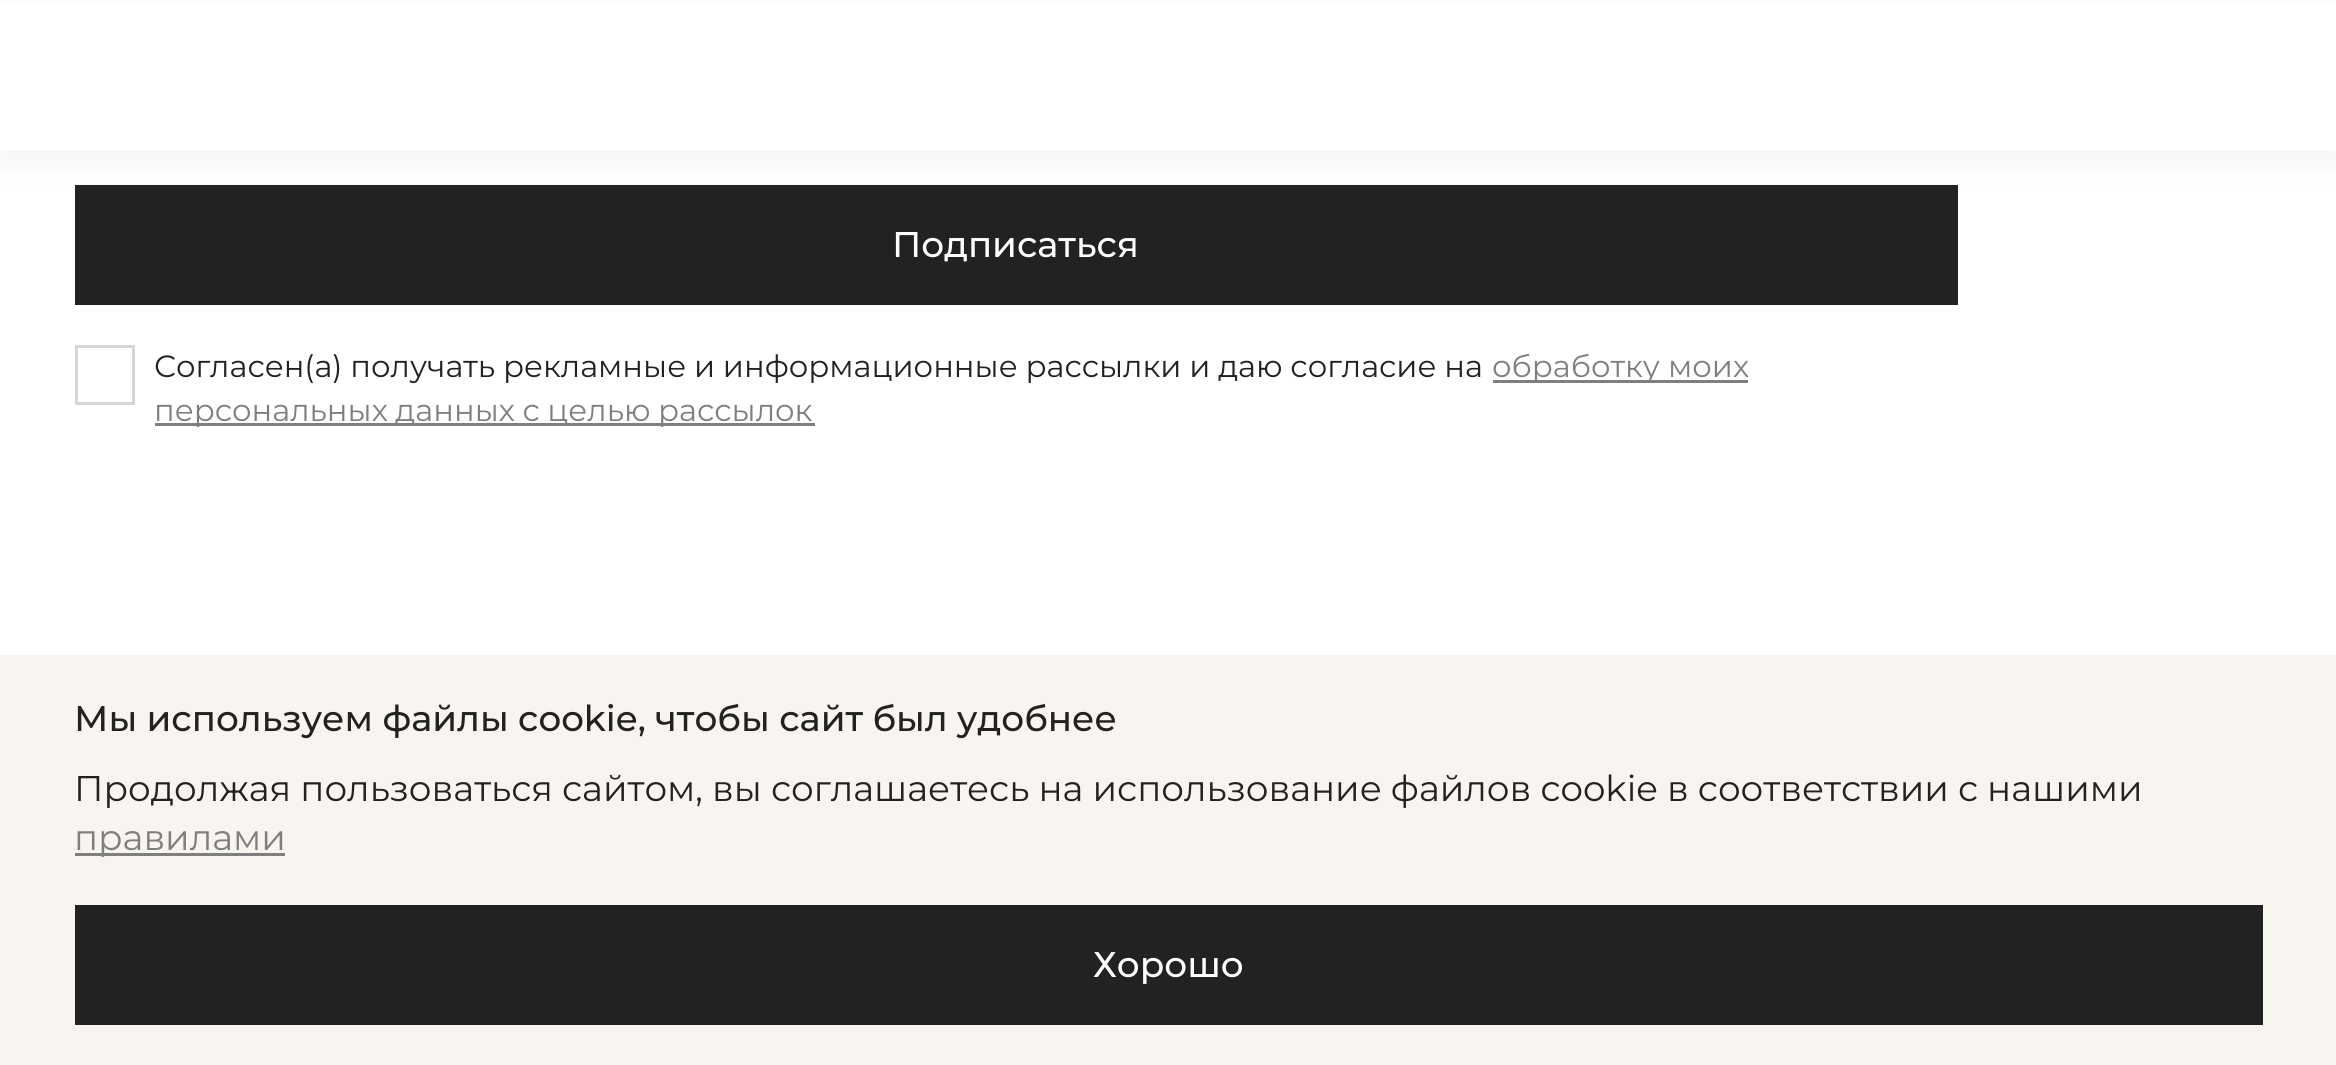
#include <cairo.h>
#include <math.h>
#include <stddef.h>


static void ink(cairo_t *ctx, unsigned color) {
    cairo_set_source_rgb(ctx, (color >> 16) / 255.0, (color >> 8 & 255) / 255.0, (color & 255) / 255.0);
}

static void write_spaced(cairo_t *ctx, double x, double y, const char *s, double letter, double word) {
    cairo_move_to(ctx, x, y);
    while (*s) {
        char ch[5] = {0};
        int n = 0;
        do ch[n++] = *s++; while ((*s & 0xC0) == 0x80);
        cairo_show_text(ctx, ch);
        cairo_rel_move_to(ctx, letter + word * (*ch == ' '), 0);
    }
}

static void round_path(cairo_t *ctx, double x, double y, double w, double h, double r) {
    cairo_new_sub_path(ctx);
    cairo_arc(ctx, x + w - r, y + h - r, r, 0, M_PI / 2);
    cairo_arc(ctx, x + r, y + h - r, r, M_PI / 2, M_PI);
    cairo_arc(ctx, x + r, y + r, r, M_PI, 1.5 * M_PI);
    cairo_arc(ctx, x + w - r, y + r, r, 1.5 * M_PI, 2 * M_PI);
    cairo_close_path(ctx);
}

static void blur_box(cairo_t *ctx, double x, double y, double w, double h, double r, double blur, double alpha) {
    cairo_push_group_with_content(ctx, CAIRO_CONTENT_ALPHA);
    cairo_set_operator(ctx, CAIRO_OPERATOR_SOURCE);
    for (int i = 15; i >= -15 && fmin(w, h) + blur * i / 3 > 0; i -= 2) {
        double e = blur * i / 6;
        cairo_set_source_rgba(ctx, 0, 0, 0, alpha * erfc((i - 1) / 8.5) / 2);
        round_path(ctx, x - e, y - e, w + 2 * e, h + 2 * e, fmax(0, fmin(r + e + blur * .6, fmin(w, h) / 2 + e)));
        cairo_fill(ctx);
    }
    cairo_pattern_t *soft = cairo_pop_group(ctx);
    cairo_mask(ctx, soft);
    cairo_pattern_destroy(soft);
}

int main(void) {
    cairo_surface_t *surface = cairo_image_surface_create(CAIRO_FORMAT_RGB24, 2336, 1065);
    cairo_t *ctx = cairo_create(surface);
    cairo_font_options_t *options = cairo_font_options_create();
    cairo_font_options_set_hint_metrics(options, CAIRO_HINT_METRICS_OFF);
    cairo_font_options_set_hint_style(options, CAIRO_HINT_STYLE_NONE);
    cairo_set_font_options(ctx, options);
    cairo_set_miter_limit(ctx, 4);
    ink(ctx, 0xFFFFFF);
    cairo_paint(ctx);
    ink(ctx, 0x222222);
    cairo_rectangle(ctx, 75, 185, 1883, 120);
    cairo_fill(ctx);
    ink(ctx, 0xA1998C);
    blur_box(ctx, 0, 15, 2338, 150, 0, 15, 0.1);
    ink(ctx, 0xFFFFFF);
    cairo_rectangle(ctx, 0, 4, 2336, 146);
    cairo_fill(ctx);
    cairo_select_font_face(ctx, "Montserrat Medium", CAIRO_FONT_SLANT_NORMAL, CAIRO_FONT_WEIGHT_NORMAL);
    cairo_set_font_size(ctx, 35.72);
    cairo_move_to(ctx, 892, 257);
    cairo_show_text(ctx, "Подписаться");
    cairo_rectangle(ctx, 76.5, 346.5, 57, 57);
    ink(ctx, 0xD5D5D5);
    cairo_set_line_width(ctx, 3);
    cairo_stroke(ctx);
    cairo_select_font_face(ctx, "Montserrat", CAIRO_FONT_SLANT_NORMAL, CAIRO_FONT_WEIGHT_NORMAL);
    cairo_set_font_size(ctx, 30.7);
    ink(ctx, 0x222222);
    write_spaced(ctx, 154, 377, "Согласен(а) получать рекламные и информационные рассылки и даю согласие на", 0, -0.25);
    ink(ctx, 0x7F7F7F);
    cairo_rectangle(ctx, 1493, 380, 255, 3);
    cairo_fill(ctx);
    cairo_move_to(ctx, 1492, 377);
    cairo_show_text(ctx, "обработку моих");
    cairo_rectangle(ctx, 155, 423, 660, 3);
    cairo_fill(ctx);
    write_spaced(ctx, 154, 421, "персональных данных с целью рассылок", 0, -0.5);
    ink(ctx, 0xF8F5F0);
    cairo_rectangle(ctx, 0, 655, 2336, 410);
    cairo_fill(ctx);
    cairo_select_font_face(ctx, "Montserrat Medium", CAIRO_FONT_SLANT_NORMAL, CAIRO_FONT_WEIGHT_NORMAL);
    cairo_set_font_size(ctx, 35.72);
    ink(ctx, 0x222222);
    write_spaced(ctx, 74, 731, "Мы используем файлы cookie, чтобы сайт был удобнее", 0, -0.25);
    cairo_select_font_face(ctx, "Montserrat", CAIRO_FONT_SLANT_NORMAL, CAIRO_FONT_WEIGHT_NORMAL);
    write_spaced(ctx, 74, 801, "Продолжая пользоваться сайтом, вы соглашаетесь на использование файлов cookie в соответствии с нашими", 0, -0.25);
    ink(ctx, 0x7F7F7F);
    cairo_rectangle(ctx, 75, 853, 210, 3);
    cairo_fill(ctx);
    cairo_move_to(ctx, 74, 850);
    cairo_show_text(ctx, "правилами");
    ink(ctx, 0x222222);
    cairo_rectangle(ctx, 75, 905, 2188, 120);
    cairo_fill(ctx);
    cairo_select_font_face(ctx, "Montserrat Medium", CAIRO_FONT_SLANT_NORMAL, CAIRO_FONT_WEIGHT_NORMAL);
    ink(ctx, 0xFFFFFF);
    cairo_move_to(ctx, 1093, 977);
    cairo_show_text(ctx, "Хорошо");
    cairo_surface_write_to_png(surface, "image.png");
    cairo_font_options_destroy(options);
    cairo_destroy(ctx);
    cairo_surface_destroy(surface);
    return 0;
}
